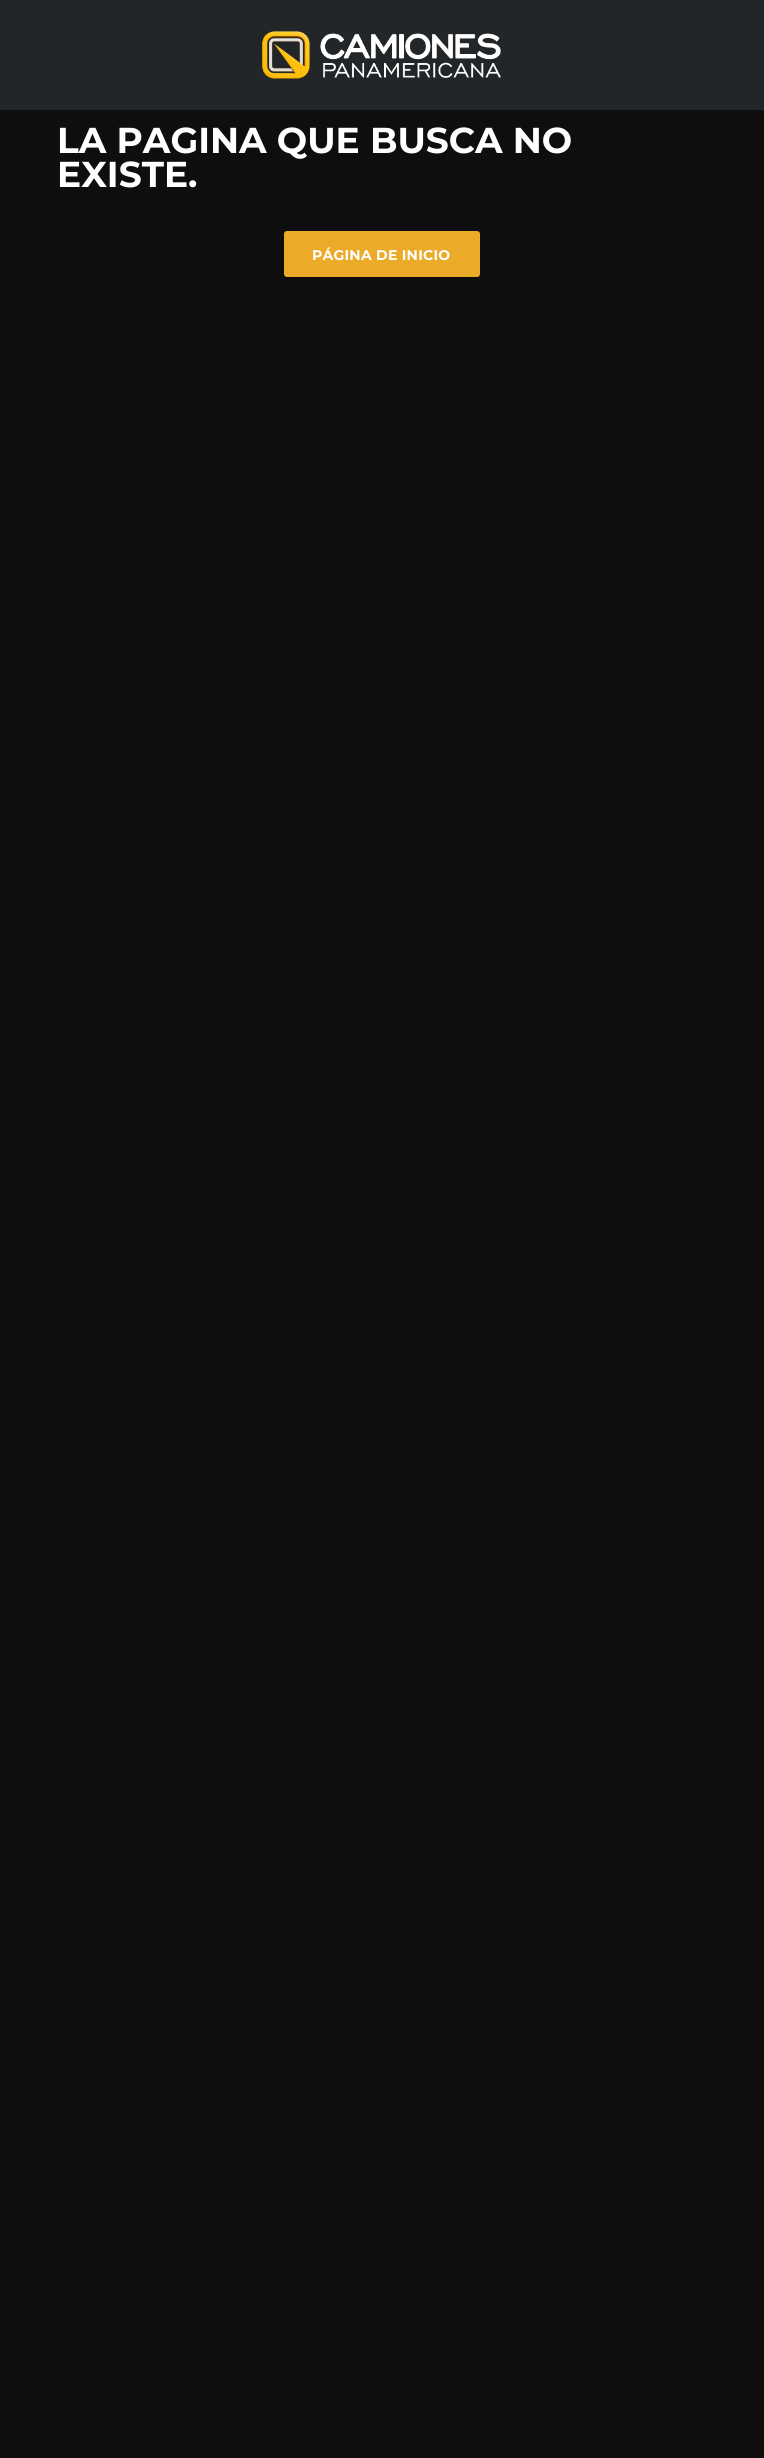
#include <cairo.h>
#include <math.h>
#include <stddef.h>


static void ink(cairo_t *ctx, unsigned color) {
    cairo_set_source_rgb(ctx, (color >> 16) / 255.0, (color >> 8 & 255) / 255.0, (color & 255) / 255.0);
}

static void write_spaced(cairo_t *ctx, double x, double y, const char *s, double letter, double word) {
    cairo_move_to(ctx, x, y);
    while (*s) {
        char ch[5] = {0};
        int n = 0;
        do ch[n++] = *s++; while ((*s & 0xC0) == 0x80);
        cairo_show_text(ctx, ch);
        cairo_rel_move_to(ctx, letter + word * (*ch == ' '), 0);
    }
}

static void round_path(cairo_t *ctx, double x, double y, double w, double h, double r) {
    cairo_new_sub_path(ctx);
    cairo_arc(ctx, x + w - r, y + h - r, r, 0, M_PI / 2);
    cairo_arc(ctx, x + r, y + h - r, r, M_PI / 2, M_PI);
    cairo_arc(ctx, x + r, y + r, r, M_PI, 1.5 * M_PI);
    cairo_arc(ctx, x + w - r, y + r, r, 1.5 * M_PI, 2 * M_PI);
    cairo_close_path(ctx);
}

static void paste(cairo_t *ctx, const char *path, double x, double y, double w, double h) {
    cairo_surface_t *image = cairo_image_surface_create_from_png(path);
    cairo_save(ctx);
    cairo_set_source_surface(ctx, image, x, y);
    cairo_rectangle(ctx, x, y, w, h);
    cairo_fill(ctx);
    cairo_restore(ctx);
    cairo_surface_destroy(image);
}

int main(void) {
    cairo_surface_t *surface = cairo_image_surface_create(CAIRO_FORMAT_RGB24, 764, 2458);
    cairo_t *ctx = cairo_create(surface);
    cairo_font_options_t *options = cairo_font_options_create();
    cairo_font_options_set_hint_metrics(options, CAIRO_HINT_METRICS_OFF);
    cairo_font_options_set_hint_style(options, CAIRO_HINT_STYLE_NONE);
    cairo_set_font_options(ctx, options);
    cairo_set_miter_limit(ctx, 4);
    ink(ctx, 0x0E0E0E);
    cairo_paint(ctx);
    ink(ctx, 0x232628);
    cairo_rectangle(ctx, 0, 0, 764, 110);
    cairo_fill(ctx);
    paste(ctx, "media/1.png", 262, 31, 239, 48);
    cairo_select_font_face(ctx, "Montserrat", CAIRO_FONT_SLANT_NORMAL, CAIRO_FONT_WEIGHT_BOLD);
    cairo_set_font_size(ctx, 36);
    ink(ctx, 0xFFFFFF);
    cairo_move_to(ctx, 57, 153);
    cairo_show_text(ctx, "LA PAGINA QUE BUSCA NO");
    cairo_move_to(ctx, 57, 187);
    cairo_show_text(ctx, "EXISTE.");
    ink(ctx, 0xEBAA28);
    round_path(ctx, 284, 231, 196, 46, 3);
    cairo_fill(ctx);
    cairo_set_font_size(ctx, 14);
    ink(ctx, 0xFFFFFF);
    write_spaced(ctx, 312, 260, "PÁGINA DE INICIO", 0.25, 0);
    cairo_surface_write_to_png(surface, "image.png");
    cairo_font_options_destroy(options);
    cairo_destroy(ctx);
    cairo_surface_destroy(surface);
    return 0;
}
